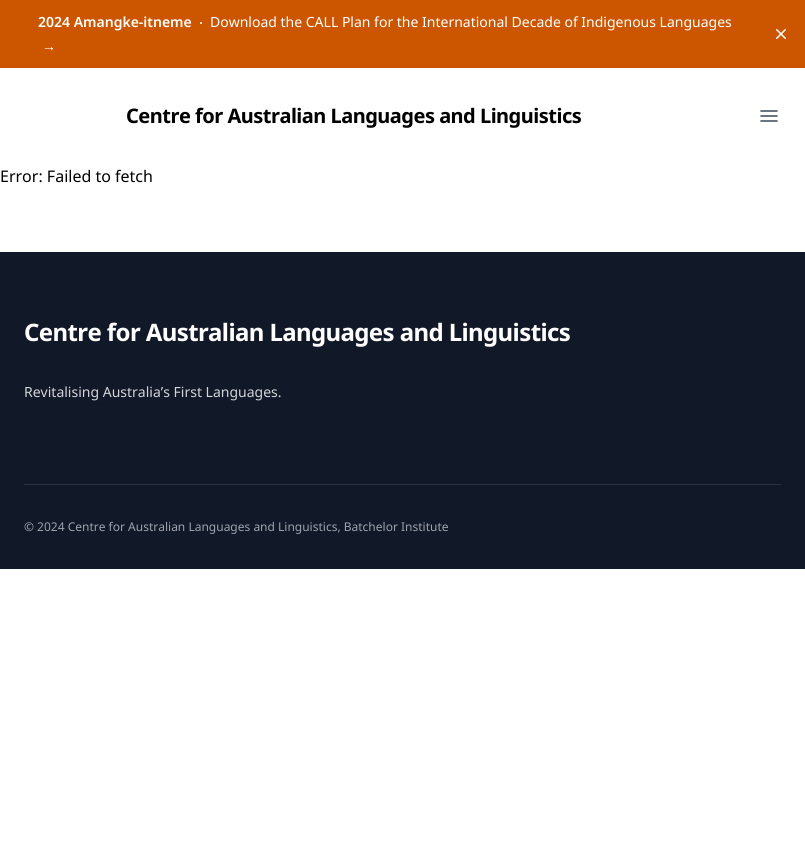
#include <cairo.h>
#include <math.h>
#include <stddef.h>


static void ink(cairo_t *ctx, unsigned color) {
    cairo_set_source_rgb(ctx, (color >> 16) / 255.0, (color >> 8 & 255) / 255.0, (color & 255) / 255.0);
}

static void write_spaced(cairo_t *ctx, double x, double y, const char *s, double letter, double word) {
    cairo_move_to(ctx, x, y);
    while (*s) {
        char ch[5] = {0};
        int n = 0;
        do ch[n++] = *s++; while ((*s & 0xC0) == 0x80);
        cairo_show_text(ctx, ch);
        cairo_rel_move_to(ctx, letter + word * (*ch == ' '), 0);
    }
}

static void paste(cairo_t *ctx, const char *path, double x, double y, double w, double h) {
    cairo_surface_t *image = cairo_image_surface_create_from_png(path);
    cairo_save(ctx);
    cairo_set_source_surface(ctx, image, x, y);
    cairo_rectangle(ctx, x, y, w, h);
    cairo_fill(ctx);
    cairo_restore(ctx);
    cairo_surface_destroy(image);
}

int main(void) {
    cairo_surface_t *surface = cairo_image_surface_create(CAIRO_FORMAT_RGB24, 805, 850);
    cairo_t *ctx = cairo_create(surface);
    cairo_font_options_t *options = cairo_font_options_create();
    cairo_font_options_set_hint_metrics(options, CAIRO_HINT_METRICS_OFF);
    cairo_font_options_set_hint_style(options, CAIRO_HINT_STYLE_NONE);
    cairo_set_font_options(ctx, options);
    cairo_set_miter_limit(ctx, 4);
    ink(ctx, 0xFFFFFF);
    cairo_paint(ctx);
    ink(ctx, 0xCC5500);
    cairo_rectangle(ctx, 0, 0, 805, 68);
    cairo_fill(ctx);
    cairo_select_font_face(ctx, "Noto Sans SemiBold", CAIRO_FONT_SLANT_NORMAL, CAIRO_FONT_WEIGHT_NORMAL);
    cairo_set_font_size(ctx, 14);
    ink(ctx, 0xFFFFFF);
    cairo_move_to(ctx, 38, 27);
    cairo_show_text(ctx, "2024 Amangke-itneme");
    cairo_new_path(ctx);
    cairo_arc(ctx, 201, 23, 1, 0, 2 * M_PI);
    cairo_fill(ctx);
    cairo_select_font_face(ctx, "Noto Sans", CAIRO_FONT_SLANT_NORMAL, CAIRO_FONT_WEIGHT_NORMAL);
    cairo_move_to(ctx, 210, 27);
    cairo_show_text(ctx, "Download the CALL Plan for the International Decade of Indigenous Languages");
    cairo_select_font_face(ctx, "Liberation Sans", CAIRO_FONT_SLANT_NORMAL, CAIRO_FONT_WEIGHT_NORMAL);
    cairo_move_to(ctx, 42, 51);
    cairo_show_text(ctx, "→");
    paste(ctx, "media/1.png", 776, 29, 10, 10);
    cairo_select_font_face(ctx, "Noto Sans", CAIRO_FONT_SLANT_NORMAL, CAIRO_FONT_WEIGHT_BOLD);
    cairo_set_font_size(ctx, 20);
    ink(ctx, 0x000000);
    write_spaced(ctx, 126, 123, "Centre for Australian Languages and Linguistics", -0.5, 0);
    cairo_new_path(ctx);
    cairo_move_to(ctx, 761, 111);
    cairo_line_to(ctx, 777, 111);
    cairo_move_to(ctx, 761, 116);
    cairo_line_to(ctx, 777, 116);
    cairo_move_to(ctx, 761, 121);
    cairo_line_to(ctx, 777, 121);
    ink(ctx, 0x374151);
    cairo_set_line_width(ctx, 1.5);
    cairo_set_line_cap(ctx, CAIRO_LINE_CAP_ROUND);
    cairo_set_line_join(ctx, CAIRO_LINE_JOIN_ROUND);
    cairo_stroke(ctx);
    cairo_select_font_face(ctx, "Noto Sans", CAIRO_FONT_SLANT_NORMAL, CAIRO_FONT_WEIGHT_NORMAL);
    cairo_set_font_size(ctx, 16);
    ink(ctx, 0x000000);
    cairo_move_to(ctx, 0, 182);
    cairo_show_text(ctx, "Error: Failed to fetch");
    ink(ctx, 0x111827);
    cairo_rectangle(ctx, 0, 252, 805, 317);
    cairo_fill(ctx);
    cairo_select_font_face(ctx, "Noto Sans", CAIRO_FONT_SLANT_NORMAL, CAIRO_FONT_WEIGHT_BOLD);
    cairo_set_font_size(ctx, 24);
    ink(ctx, 0xFFFFFF);
    write_spaced(ctx, 24, 341, "Centre for Australian Languages and Linguistics", -0.6, 0);
    cairo_select_font_face(ctx, "Noto Sans", CAIRO_FONT_SLANT_NORMAL, CAIRO_FONT_WEIGHT_NORMAL);
    cairo_set_font_size(ctx, 14);
    ink(ctx, 0xD1D5DB);
    cairo_move_to(ctx, 24, 397);
    cairo_show_text(ctx, "Revitalising Australia’s First Languages.");
    ink(ctx, 0x292F3D);
    cairo_rectangle(ctx, 24, 484, 757, 1);
    cairo_fill(ctx);
    cairo_set_font_size(ctx, 12);
    ink(ctx, 0x9CA3AF);
    cairo_move_to(ctx, 24, 531);
    cairo_show_text(ctx, "© 2024 Centre for Australian Languages and Linguistics, Batchelor Institute");
    cairo_surface_write_to_png(surface, "image.png");
    cairo_font_options_destroy(options);
    cairo_destroy(ctx);
    cairo_surface_destroy(surface);
    return 0;
}
